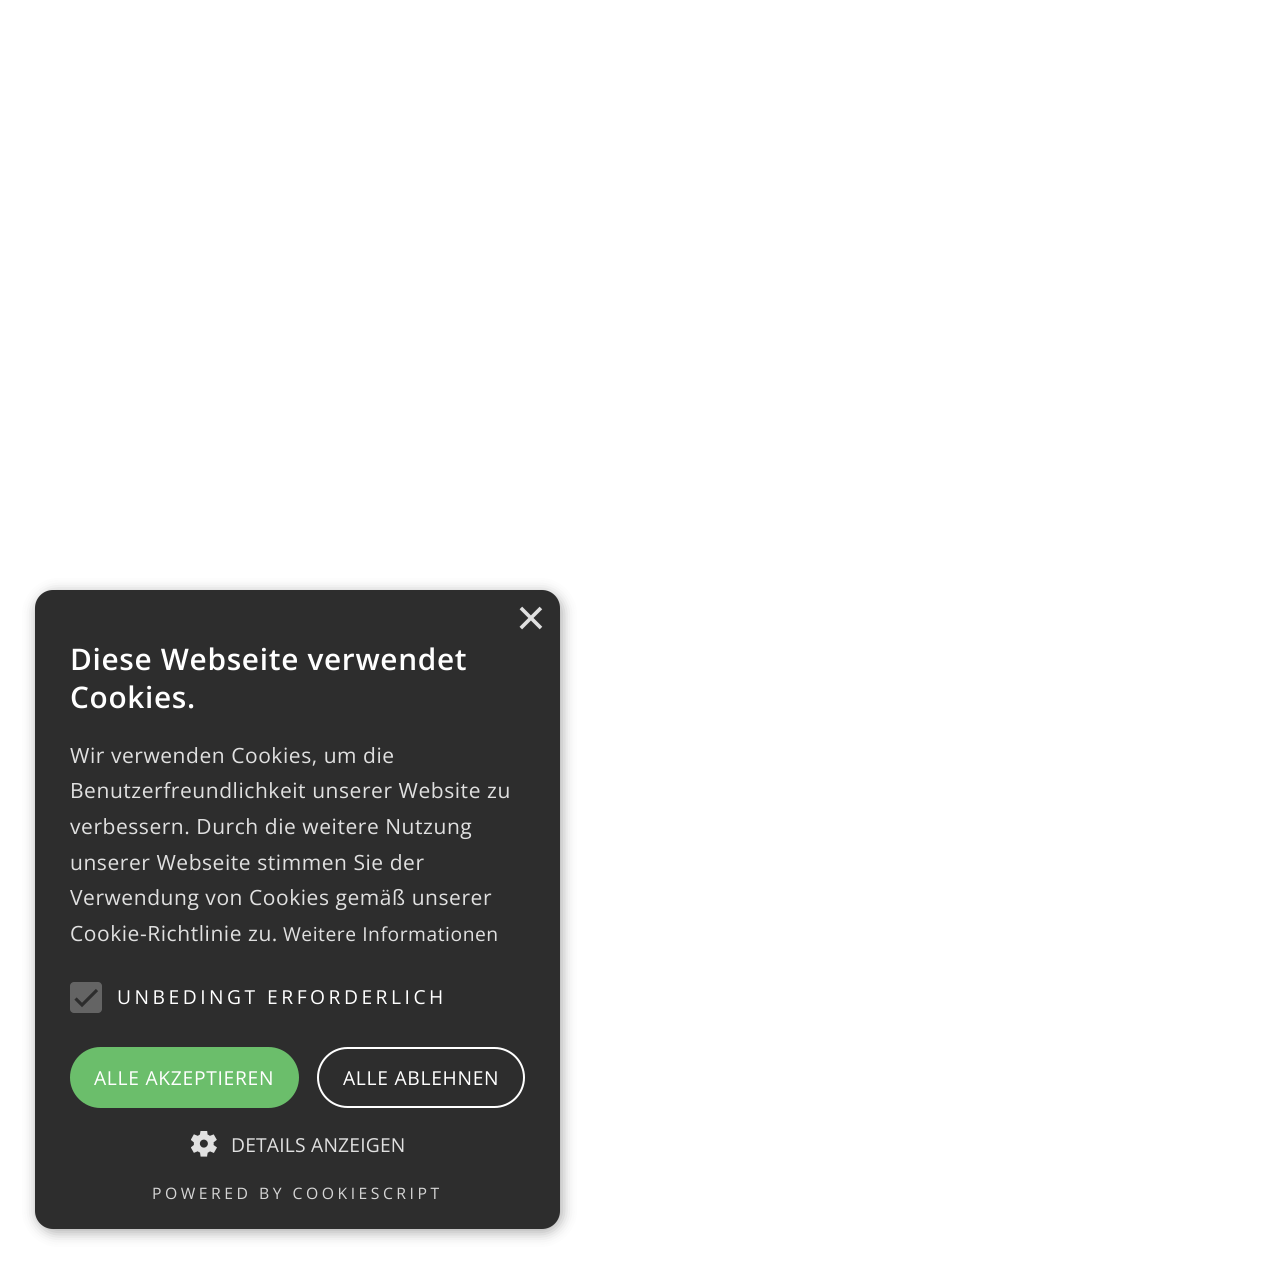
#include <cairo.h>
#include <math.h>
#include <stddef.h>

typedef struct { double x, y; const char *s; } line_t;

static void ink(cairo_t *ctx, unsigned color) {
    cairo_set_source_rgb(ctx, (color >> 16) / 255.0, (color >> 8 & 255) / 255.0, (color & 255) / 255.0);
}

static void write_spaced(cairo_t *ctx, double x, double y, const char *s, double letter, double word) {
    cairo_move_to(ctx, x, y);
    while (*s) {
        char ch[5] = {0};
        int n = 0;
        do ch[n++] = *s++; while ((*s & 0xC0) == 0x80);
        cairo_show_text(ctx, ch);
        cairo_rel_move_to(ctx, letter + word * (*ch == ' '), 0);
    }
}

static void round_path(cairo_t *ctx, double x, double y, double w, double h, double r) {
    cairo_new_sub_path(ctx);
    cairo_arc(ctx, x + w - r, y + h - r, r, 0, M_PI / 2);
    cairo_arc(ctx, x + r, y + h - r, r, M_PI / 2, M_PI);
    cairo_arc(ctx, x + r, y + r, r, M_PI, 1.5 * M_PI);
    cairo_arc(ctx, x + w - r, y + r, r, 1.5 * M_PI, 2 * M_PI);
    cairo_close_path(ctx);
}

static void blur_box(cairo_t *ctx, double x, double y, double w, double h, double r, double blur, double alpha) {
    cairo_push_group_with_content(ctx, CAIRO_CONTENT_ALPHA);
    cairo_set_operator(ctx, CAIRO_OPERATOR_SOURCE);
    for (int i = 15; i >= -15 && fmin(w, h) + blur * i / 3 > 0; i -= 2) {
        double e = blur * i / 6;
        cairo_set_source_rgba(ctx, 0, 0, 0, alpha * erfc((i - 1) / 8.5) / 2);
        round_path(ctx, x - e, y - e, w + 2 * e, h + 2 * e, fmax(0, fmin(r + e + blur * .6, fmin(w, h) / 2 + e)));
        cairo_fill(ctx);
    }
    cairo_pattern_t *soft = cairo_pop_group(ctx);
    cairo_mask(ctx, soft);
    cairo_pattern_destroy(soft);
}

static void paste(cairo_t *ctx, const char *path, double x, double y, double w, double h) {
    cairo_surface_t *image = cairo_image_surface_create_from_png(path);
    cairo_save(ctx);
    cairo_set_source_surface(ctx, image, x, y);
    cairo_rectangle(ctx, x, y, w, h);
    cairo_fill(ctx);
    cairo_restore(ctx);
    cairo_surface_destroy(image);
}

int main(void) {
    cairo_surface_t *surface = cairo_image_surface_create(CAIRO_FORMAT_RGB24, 1277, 1262);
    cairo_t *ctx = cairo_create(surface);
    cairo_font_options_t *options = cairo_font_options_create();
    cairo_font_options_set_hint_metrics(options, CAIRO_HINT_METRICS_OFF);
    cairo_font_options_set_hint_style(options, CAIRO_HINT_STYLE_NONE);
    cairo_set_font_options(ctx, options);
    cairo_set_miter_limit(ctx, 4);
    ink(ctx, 0xFFFFFF);
    cairo_paint(ctx);
    ink(ctx, 0x000000);
    blur_box(ctx, 37, 593, 525, 639, 18, 7, 0.35);
    ink(ctx, 0x2D2D2D);
    round_path(ctx, 35, 590, 525, 639, 18);
    cairo_fill(ctx);
    cairo_select_font_face(ctx, "Liberation Sans", CAIRO_FONT_SLANT_NORMAL, CAIRO_FONT_WEIGHT_NORMAL);
    cairo_set_font_size(ctx, 51);
    ink(ctx, 0xE0E0E0);
    cairo_move_to(ctx, 516, 635);
    cairo_show_text(ctx, "×");
    cairo_select_font_face(ctx, "Open Sans SemiBold", CAIRO_FONT_SLANT_NORMAL, CAIRO_FONT_WEIGHT_NORMAL);
    cairo_set_font_size(ctx, 29.75);
    ink(ctx, 0xFFFFFF);
    write_spaced(ctx, 70, 670, "Diese Webseite verwendet", 0.7, 0);
    write_spaced(ctx, 70, 708, "Cookies.", 0.7, 0);
    cairo_select_font_face(ctx, "Open Sans", CAIRO_FONT_SLANT_NORMAL, CAIRO_FONT_WEIGHT_NORMAL);
    cairo_set_font_size(ctx, 21);
    ink(ctx, 0xE0E0E0);
    {
        static const line_t items[] = {
            {70, 763, "Wir verwenden Cookies, um die"},
            {70, 798, "Benutzerfreundlichkeit unserer Website zu"},
            {70, 834, "verbessern. Durch die weitere Nutzung"},
            {70, 870, "unserer Webseite stimmen Sie der"},
            {70, 905, "Verwendung von Cookies gemäß unserer"},
            {70, 941, "Cookie-Richtlinie zu."},
        };
        for (size_t i = 0; i < sizeof items / sizeof *items; i++) {
            write_spaced(ctx, items[i].x, items[i].y, items[i].s, 0.55, 0);
        }
    }
    cairo_set_font_size(ctx, 19.25);
    write_spaced(ctx, 283, 941, "Weitere Informationen", 0.55, 0);
    ink(ctx, 0x646464);
    round_path(ctx, 70, 982, 32, 31, 4);
    cairo_fill(ctx);
    cairo_new_path(ctx);
    cairo_move_to(ctx, 75.5, 998.5);
    cairo_line_to(ctx, 82, 1005);
    cairo_line_to(ctx, 97, 990);
    ink(ctx, 0x2D2D2D);
    cairo_set_line_width(ctx, 3.2);
    cairo_stroke(ctx);
    ink(ctx, 0xFFFFFF);
    write_spaced(ctx, 117, 1004, "UNBEDINGT ERFORDERLICH", 3.5, 0);
    ink(ctx, 0x6BBE6B);
    round_path(ctx, 70, 1047, 229, 61, 30.5);
    cairo_fill(ctx);
    ink(ctx, 0xFFFFFF);
    write_spaced(ctx, 94, 1085, "ALLE AKZEPTIEREN", 0.7, 0);
    round_path(ctx, 318, 1048, 206, 59, 29.5);
    cairo_set_line_width(ctx, 2);
    cairo_stroke(ctx);
    write_spaced(ctx, 343, 1085, "ALLE ABLEHNEN", 0.7, 0);
    paste(ctx, "media/1.png", 191, 1131, 26, 26);
    ink(ctx, 0xE0E0E0);
    write_spaced(ctx, 231, 1152, "DETAILS ANZEIGEN", 0.2, 0);
    cairo_set_font_size(ctx, 15.75);
    ink(ctx, 0xD5D5D5);
    write_spaced(ctx, 152, 1199, "POWERED BY COOKIESCRIPT", 3.5, 0);
    cairo_surface_write_to_png(surface, "image.png");
    cairo_font_options_destroy(options);
    cairo_destroy(ctx);
    cairo_surface_destroy(surface);
    return 0;
}
